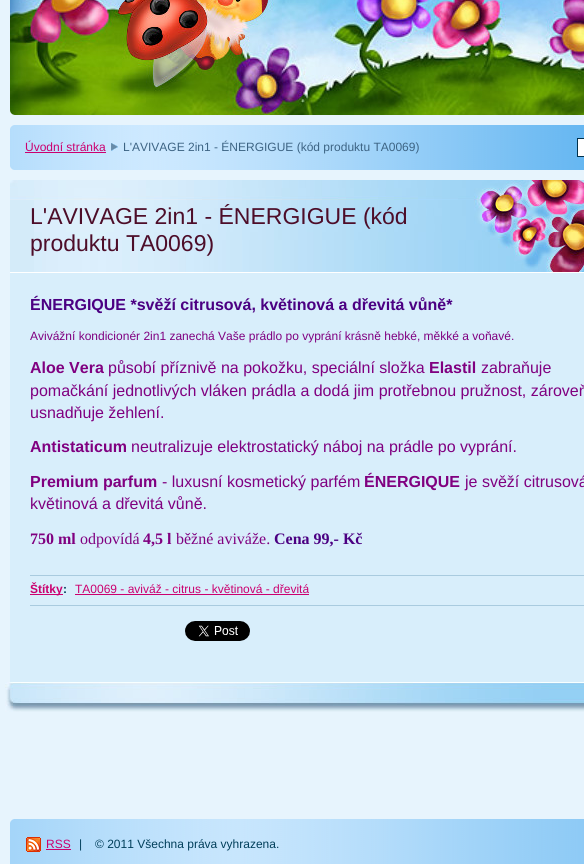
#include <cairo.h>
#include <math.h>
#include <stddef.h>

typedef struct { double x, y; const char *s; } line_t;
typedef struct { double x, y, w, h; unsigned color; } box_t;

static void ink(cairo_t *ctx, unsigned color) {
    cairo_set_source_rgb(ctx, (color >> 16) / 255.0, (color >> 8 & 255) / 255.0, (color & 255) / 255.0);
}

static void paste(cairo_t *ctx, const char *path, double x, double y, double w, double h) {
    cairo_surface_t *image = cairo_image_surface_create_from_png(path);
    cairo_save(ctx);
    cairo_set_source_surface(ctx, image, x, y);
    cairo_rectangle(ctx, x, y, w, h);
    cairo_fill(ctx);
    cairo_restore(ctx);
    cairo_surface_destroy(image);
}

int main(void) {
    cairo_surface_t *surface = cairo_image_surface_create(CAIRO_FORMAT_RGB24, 584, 864);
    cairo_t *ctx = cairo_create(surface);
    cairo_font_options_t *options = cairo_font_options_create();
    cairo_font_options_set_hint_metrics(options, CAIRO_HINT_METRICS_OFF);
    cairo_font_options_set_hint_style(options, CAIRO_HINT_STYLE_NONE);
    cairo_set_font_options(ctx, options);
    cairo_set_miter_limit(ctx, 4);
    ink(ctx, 0xE7F4FD);
    cairo_paint(ctx);
    paste(ctx, "media/1.png", 10, 0, 574, 115);
    paste(ctx, "media/2.png", 10, 110, 5, 5);
    paste(ctx, "media/3.png", 10, 125, 574, 45);
    paste(ctx, "media/4.png", 10, 166, 4, 4);
    paste(ctx, "media/5.png", 10, 125, 4, 4);
    cairo_select_font_face(ctx, "Liberation Sans", CAIRO_FONT_SLANT_NORMAL, CAIRO_FONT_WEIGHT_NORMAL);
    cairo_set_font_size(ctx, 12);
    ink(ctx, 0xCB006F);
    cairo_move_to(ctx, 25, 151);
    cairo_show_text(ctx, "Úvodní stránka");
    cairo_rectangle(ctx, 25, 152, 81, 1);
    cairo_fill(ctx);
    paste(ctx, "media/6.png", 111, 143, 7, 8);
    ink(ctx, 0x3D6484);
    cairo_move_to(ctx, 123, 151);
    cairo_show_text(ctx, "L'AVIVAGE 2in1 - ÉNERGIGUE (kód produktu TA0069)");
    ink(ctx, 0xFFFFFF);
    cairo_rectangle(ctx, 577.5, 138.5, 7, 18);
    cairo_fill_preserve(ctx);
    ink(ctx, 0x00314C);
    cairo_set_line_width(ctx, 1);
    cairo_stroke(ctx);
    paste(ctx, "media/7.png", 5, 682, 579, 30);
    ink(ctx, 0xD8EEFB);
    cairo_rectangle(ctx, 10, 273, 574, 409);
    cairo_fill(ctx);
    paste(ctx, "media/8.png", 10, 180, 574, 20);
    ink(ctx, 0xD4EBF9);
    cairo_rectangle(ctx, 10, 200, 24, 72);
    cairo_fill(ctx);
    paste(ctx, "media/9.png", 34, 200, 550, 72);
    ink(ctx, 0xFFFFFF);
    cairo_rectangle(ctx, 10, 272, 574, 1);
    cairo_fill(ctx);
    cairo_set_font_size(ctx, 23);
    ink(ctx, 0x4D0D29);
    cairo_move_to(ctx, 30, 224);
    cairo_show_text(ctx, "L'AVIVAGE 2in1 - ÉNERGIGUE (kód");
    cairo_move_to(ctx, 30, 251);
    cairo_show_text(ctx, "produktu TA0069)");
    cairo_select_font_face(ctx, "Liberation Sans", CAIRO_FONT_SLANT_NORMAL, CAIRO_FONT_WEIGHT_BOLD);
    cairo_set_font_size(ctx, 16);
    ink(ctx, 0x4B0082);
    cairo_move_to(ctx, 30, 310);
    cairo_show_text(ctx, "ÉNERGIQUE *svěží citrusová, květinová a dřevitá vůně*");
    cairo_select_font_face(ctx, "Liberation Sans", CAIRO_FONT_SLANT_NORMAL, CAIRO_FONT_WEIGHT_NORMAL);
    cairo_set_font_size(ctx, 12);
    ink(ctx, 0x800080);
    cairo_move_to(ctx, 30, 340);
    cairo_show_text(ctx, "Avivážní kondicionér 2in1 zanechá Vaše prádlo po vyprání krásně hebké, měkké a voňavé.");
    cairo_select_font_face(ctx, "Liberation Sans", CAIRO_FONT_SLANT_NORMAL, CAIRO_FONT_WEIGHT_BOLD);
    cairo_set_font_size(ctx, 16);
    cairo_move_to(ctx, 30, 373);
    cairo_show_text(ctx, "Aloe Vera");
    cairo_select_font_face(ctx, "Liberation Sans", CAIRO_FONT_SLANT_NORMAL, CAIRO_FONT_WEIGHT_NORMAL);
    cairo_move_to(ctx, 108, 373);
    cairo_show_text(ctx, "působí příznivě na pokožku, speciální složka");
    cairo_select_font_face(ctx, "Liberation Sans", CAIRO_FONT_SLANT_NORMAL, CAIRO_FONT_WEIGHT_BOLD);
    cairo_move_to(ctx, 429, 373);
    cairo_show_text(ctx, "Elastil");
    cairo_select_font_face(ctx, "Liberation Sans", CAIRO_FONT_SLANT_NORMAL, CAIRO_FONT_WEIGHT_NORMAL);
    {
        static const line_t items[] = {
            {481, 373, "zabraňuje"},
            {30, 396, "pomačkání jednotlivých vláken prádla a dodá jim protřebnou pružnost, zároveň"},
            {30, 418, "usnadňuje žehlení."},
        };
        for (size_t i = 0; i < sizeof items / sizeof *items; i++) {
            cairo_move_to(ctx, items[i].x, items[i].y);
            cairo_show_text(ctx, items[i].s);
        }
    }
    cairo_select_font_face(ctx, "Liberation Sans", CAIRO_FONT_SLANT_NORMAL, CAIRO_FONT_WEIGHT_BOLD);
    cairo_move_to(ctx, 30, 452);
    cairo_show_text(ctx, "Antistaticum");
    cairo_select_font_face(ctx, "Liberation Sans", CAIRO_FONT_SLANT_NORMAL, CAIRO_FONT_WEIGHT_NORMAL);
    cairo_move_to(ctx, 131, 452);
    cairo_show_text(ctx, "neutralizuje elektrostatický náboj na prádle po vyprání.");
    cairo_select_font_face(ctx, "Liberation Sans", CAIRO_FONT_SLANT_NORMAL, CAIRO_FONT_WEIGHT_BOLD);
    cairo_move_to(ctx, 30, 487);
    cairo_show_text(ctx, "Premium parfum");
    cairo_select_font_face(ctx, "Liberation Sans", CAIRO_FONT_SLANT_NORMAL, CAIRO_FONT_WEIGHT_NORMAL);
    cairo_move_to(ctx, 162, 487);
    cairo_show_text(ctx, "- luxusní kosmetický parfém");
    cairo_select_font_face(ctx, "Liberation Sans", CAIRO_FONT_SLANT_NORMAL, CAIRO_FONT_WEIGHT_BOLD);
    cairo_move_to(ctx, 364, 487);
    cairo_show_text(ctx, "ÉNERGIQUE");
    cairo_select_font_face(ctx, "Liberation Sans", CAIRO_FONT_SLANT_NORMAL, CAIRO_FONT_WEIGHT_NORMAL);
    cairo_move_to(ctx, 465, 487);
    cairo_show_text(ctx, "je svěží citrusová");
    cairo_move_to(ctx, 30, 509);
    cairo_show_text(ctx, "květinová a dřevitá vůně.");
    cairo_select_font_face(ctx, "Liberation Serif", CAIRO_FONT_SLANT_NORMAL, CAIRO_FONT_WEIGHT_BOLD);
    cairo_move_to(ctx, 30, 544);
    cairo_show_text(ctx, "750 ml");
    cairo_select_font_face(ctx, "Liberation Serif", CAIRO_FONT_SLANT_NORMAL, CAIRO_FONT_WEIGHT_NORMAL);
    cairo_move_to(ctx, 80, 544);
    cairo_show_text(ctx, "odpovídá");
    cairo_select_font_face(ctx, "Liberation Serif", CAIRO_FONT_SLANT_NORMAL, CAIRO_FONT_WEIGHT_BOLD);
    cairo_move_to(ctx, 143, 544);
    cairo_show_text(ctx, "4,5 l");
    cairo_select_font_face(ctx, "Liberation Serif", CAIRO_FONT_SLANT_NORMAL, CAIRO_FONT_WEIGHT_NORMAL);
    cairo_move_to(ctx, 176, 544);
    cairo_show_text(ctx, "běžné aviváže.");
    cairo_select_font_face(ctx, "Liberation Serif", CAIRO_FONT_SLANT_NORMAL, CAIRO_FONT_WEIGHT_BOLD);
    ink(ctx, 0x4B0082);
    cairo_move_to(ctx, 274, 544);
    cairo_show_text(ctx, "Cena 99,- Kč");
    {
        static const box_t items[] = {
            {30, 575, 554, 1, 0xA9CBDF},
            {30, 605, 554, 1, 0xA9CBDF},
            {30, 594, 33, 1, 0xCB006F},
        };
        for (size_t i = 0; i < sizeof items / sizeof *items; i++) {
            ink(ctx, items[i].color);
            cairo_rectangle(ctx, items[i].x, items[i].y, items[i].w, items[i].h);
            cairo_fill(ctx);
        }
    }
    cairo_select_font_face(ctx, "Liberation Sans", CAIRO_FONT_SLANT_NORMAL, CAIRO_FONT_WEIGHT_BOLD);
    cairo_set_font_size(ctx, 12);
    cairo_move_to(ctx, 30, 593);
    cairo_show_text(ctx, "Štítky");
    ink(ctx, 0x013F5B);
    cairo_move_to(ctx, 63, 593);
    cairo_show_text(ctx, ":");
    cairo_select_font_face(ctx, "Liberation Sans", CAIRO_FONT_SLANT_NORMAL, CAIRO_FONT_WEIGHT_NORMAL);
    ink(ctx, 0xCB006F);
    cairo_move_to(ctx, 75, 593);
    cairo_show_text(ctx, "TA0069 - aviváž - citrus - květinová - dřevitá");
    cairo_rectangle(ctx, 75, 594, 234, 1);
    cairo_fill(ctx);
    paste(ctx, "media/10.png", 185, 621, 65, 20);
    paste(ctx, "media/11.png", 10, 819, 574, 45);
    paste(ctx, "media/12.png", 10, 819, 4, 4);
    paste(ctx, "media/13.png", 26, 837, 15, 15);
    cairo_move_to(ctx, 46, 848);
    cairo_show_text(ctx, "RSS");
    cairo_rectangle(ctx, 46, 849, 25, 1);
    cairo_fill(ctx);
    ink(ctx, 0x013F5B);
    cairo_move_to(ctx, 79, 848);
    cairo_show_text(ctx, "|");
    cairo_move_to(ctx, 95, 848);
    cairo_show_text(ctx, "© 2011 Všechna práva vyhrazena.");
    cairo_surface_write_to_png(surface, "image.png");
    cairo_font_options_destroy(options);
    cairo_destroy(ctx);
    cairo_surface_destroy(surface);
    return 0;
}
